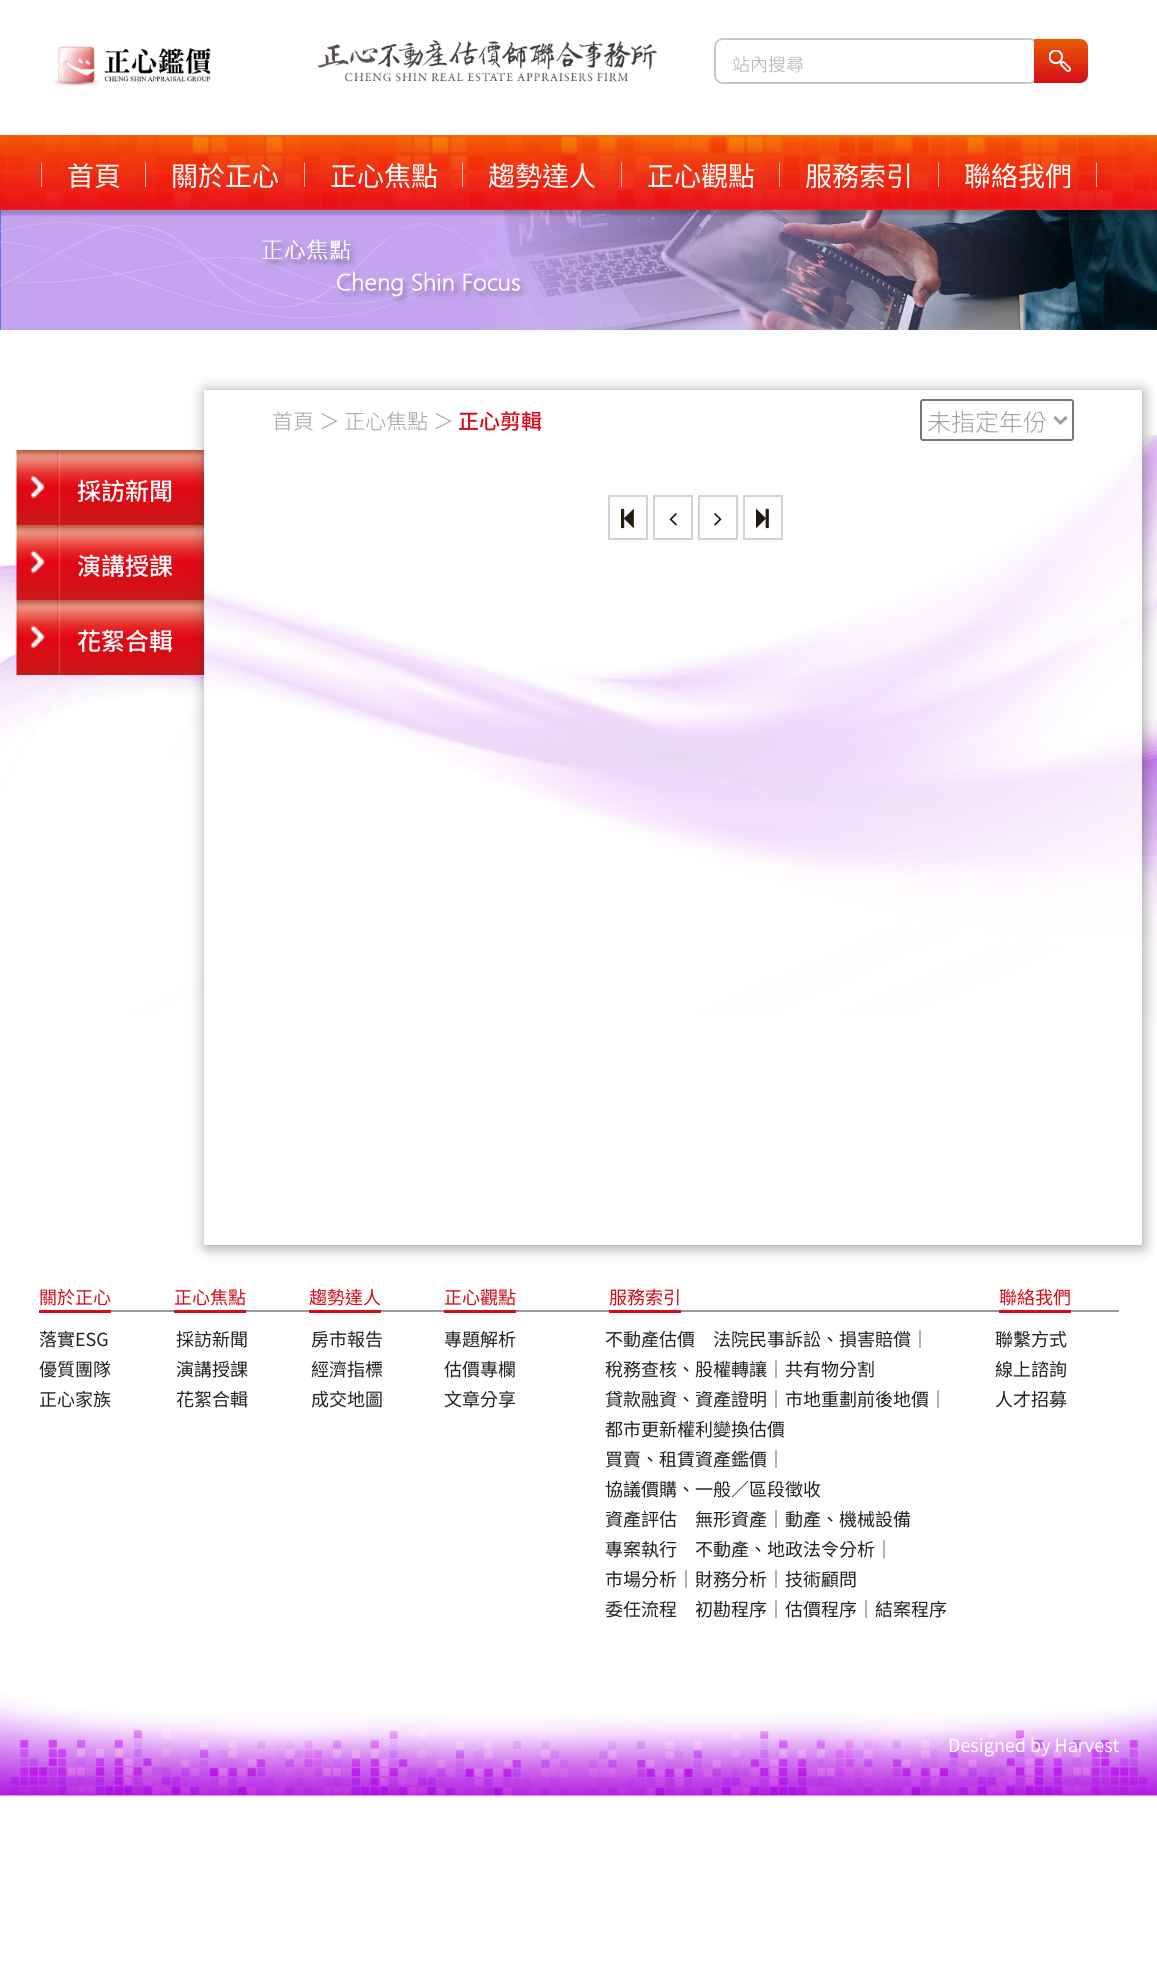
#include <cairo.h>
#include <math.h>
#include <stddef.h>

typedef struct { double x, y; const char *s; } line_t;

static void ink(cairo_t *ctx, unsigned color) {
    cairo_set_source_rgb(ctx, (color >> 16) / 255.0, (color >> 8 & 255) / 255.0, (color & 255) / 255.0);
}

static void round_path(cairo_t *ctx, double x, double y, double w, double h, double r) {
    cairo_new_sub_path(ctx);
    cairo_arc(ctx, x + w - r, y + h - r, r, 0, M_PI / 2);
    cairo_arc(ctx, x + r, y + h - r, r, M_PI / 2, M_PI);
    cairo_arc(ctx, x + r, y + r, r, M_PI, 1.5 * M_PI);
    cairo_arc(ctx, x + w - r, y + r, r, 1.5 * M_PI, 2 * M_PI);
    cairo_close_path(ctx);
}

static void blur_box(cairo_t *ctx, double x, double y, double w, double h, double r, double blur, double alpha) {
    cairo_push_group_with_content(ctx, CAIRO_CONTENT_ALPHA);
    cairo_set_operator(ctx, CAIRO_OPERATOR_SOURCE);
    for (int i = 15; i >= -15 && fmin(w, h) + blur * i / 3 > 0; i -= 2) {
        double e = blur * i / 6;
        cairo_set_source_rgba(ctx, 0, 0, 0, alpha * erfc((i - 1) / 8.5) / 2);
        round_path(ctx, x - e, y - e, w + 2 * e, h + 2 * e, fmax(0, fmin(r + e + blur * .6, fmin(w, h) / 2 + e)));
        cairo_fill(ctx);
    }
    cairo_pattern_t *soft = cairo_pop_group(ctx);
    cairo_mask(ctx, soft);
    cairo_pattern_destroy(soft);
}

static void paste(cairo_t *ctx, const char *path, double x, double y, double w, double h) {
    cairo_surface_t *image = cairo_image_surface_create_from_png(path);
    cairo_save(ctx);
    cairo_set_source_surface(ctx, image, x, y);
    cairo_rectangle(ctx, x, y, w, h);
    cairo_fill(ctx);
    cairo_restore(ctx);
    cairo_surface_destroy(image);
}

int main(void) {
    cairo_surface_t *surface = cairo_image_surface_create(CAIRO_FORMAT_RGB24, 1157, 1982);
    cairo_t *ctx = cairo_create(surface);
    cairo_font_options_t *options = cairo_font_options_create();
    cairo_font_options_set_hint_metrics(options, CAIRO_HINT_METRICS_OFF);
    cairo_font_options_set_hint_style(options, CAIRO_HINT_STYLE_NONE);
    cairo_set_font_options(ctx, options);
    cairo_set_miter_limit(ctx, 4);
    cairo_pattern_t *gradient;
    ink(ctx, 0xFFFFFF);
    cairo_paint(ctx);
    paste(ctx, "media/1.png", 0, 435, 1157, 585);
    paste(ctx, "media/5.png", 0, 210, 1157, 120);
    cairo_save(ctx);
    cairo_rectangle(ctx, 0, 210, 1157, 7);
    cairo_clip(ctx);
    ink(ctx, 0x000000);
    blur_box(ctx, -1, 2, 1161, 213, 0, 1.5, 0.2);
    cairo_restore(ctx);
    paste(ctx, "media/2.png", 0, 135, 1157, 75);
    paste(ctx, "media/3.png", 53, 39, 604, 47);
    round_path(ctx, 715, 39, 322, 44, 8);
    ink(ctx, 0xC8C9CA);
    cairo_stroke(ctx);
    cairo_select_font_face(ctx, "Noto Sans TC Light", CAIRO_FONT_SLANT_NORMAL, CAIRO_FONT_WEIGHT_NORMAL);
    cairo_set_font_size(ctx, 18);
    ink(ctx, 0xAAAAAA);
    cairo_move_to(ctx, 732, 71);
    cairo_show_text(ctx, "站內搜尋");
    gradient = cairo_pattern_create_linear(1061, 39, 1061, 83);
    cairo_pattern_add_color_stop_rgba(gradient, 0, 0.918, 0.357, 0.008, 1);
    cairo_pattern_add_color_stop_rgba(gradient, 1, 0.843, 0.047, 0.094, 1);
    cairo_set_source(ctx, gradient);
    cairo_pattern_destroy(gradient);
    cairo_new_path(ctx);
    cairo_move_to(ctx, 1034, 39);
    cairo_line_to(ctx, 1080, 39);
    cairo_curve_to(ctx, 1084.5, 39, 1088, 42.5, 1088, 47);
    cairo_line_to(ctx, 1088, 75);
    cairo_curve_to(ctx, 1088, 79.5, 1084.5, 83, 1080, 83);
    cairo_line_to(ctx, 1034, 83);
    cairo_close_path(ctx);
    cairo_fill(ctx);
    paste(ctx, "media/4.png", 1049, 50, 22, 22);
    cairo_select_font_face(ctx, "Noto Sans TC Thin", CAIRO_FONT_SLANT_NORMAL, CAIRO_FONT_WEIGHT_NORMAL);
    cairo_set_font_size(ctx, 22);
    ink(ctx, 0xFFFFFF);
    cairo_move_to(ctx, 39, 181);
    cairo_show_text(ctx, "|");
    cairo_select_font_face(ctx, "Noto Sans TC", CAIRO_FONT_SLANT_NORMAL, CAIRO_FONT_WEIGHT_NORMAL);
    cairo_set_font_size(ctx, 27);
    cairo_move_to(ctx, 67, 186);
    cairo_show_text(ctx, "首頁");
    cairo_select_font_face(ctx, "Noto Sans TC Thin", CAIRO_FONT_SLANT_NORMAL, CAIRO_FONT_WEIGHT_NORMAL);
    cairo_set_font_size(ctx, 22);
    cairo_move_to(ctx, 143, 181);
    cairo_show_text(ctx, "|");
    cairo_select_font_face(ctx, "Noto Sans TC", CAIRO_FONT_SLANT_NORMAL, CAIRO_FONT_WEIGHT_NORMAL);
    cairo_set_font_size(ctx, 27);
    cairo_move_to(ctx, 171, 186);
    cairo_show_text(ctx, "關於正心");
    cairo_select_font_face(ctx, "Noto Sans TC Thin", CAIRO_FONT_SLANT_NORMAL, CAIRO_FONT_WEIGHT_NORMAL);
    cairo_set_font_size(ctx, 22);
    cairo_move_to(ctx, 302, 181);
    cairo_show_text(ctx, "|");
    cairo_select_font_face(ctx, "Noto Sans TC", CAIRO_FONT_SLANT_NORMAL, CAIRO_FONT_WEIGHT_NORMAL);
    cairo_set_font_size(ctx, 27);
    cairo_move_to(ctx, 330, 186);
    cairo_show_text(ctx, "正心焦點");
    cairo_select_font_face(ctx, "Noto Sans TC Thin", CAIRO_FONT_SLANT_NORMAL, CAIRO_FONT_WEIGHT_NORMAL);
    cairo_set_font_size(ctx, 22);
    cairo_move_to(ctx, 460, 181);
    cairo_show_text(ctx, "|");
    cairo_select_font_face(ctx, "Noto Sans TC", CAIRO_FONT_SLANT_NORMAL, CAIRO_FONT_WEIGHT_NORMAL);
    cairo_set_font_size(ctx, 27);
    cairo_move_to(ctx, 488, 186);
    cairo_show_text(ctx, "趨勢達人");
    cairo_select_font_face(ctx, "Noto Sans TC Thin", CAIRO_FONT_SLANT_NORMAL, CAIRO_FONT_WEIGHT_NORMAL);
    cairo_set_font_size(ctx, 22);
    cairo_move_to(ctx, 619, 181);
    cairo_show_text(ctx, "|");
    cairo_select_font_face(ctx, "Noto Sans TC", CAIRO_FONT_SLANT_NORMAL, CAIRO_FONT_WEIGHT_NORMAL);
    cairo_set_font_size(ctx, 27);
    cairo_move_to(ctx, 647, 186);
    cairo_show_text(ctx, "正心觀點");
    cairo_select_font_face(ctx, "Noto Sans TC Thin", CAIRO_FONT_SLANT_NORMAL, CAIRO_FONT_WEIGHT_NORMAL);
    cairo_set_font_size(ctx, 22);
    cairo_move_to(ctx, 777, 181);
    cairo_show_text(ctx, "|");
    cairo_select_font_face(ctx, "Noto Sans TC", CAIRO_FONT_SLANT_NORMAL, CAIRO_FONT_WEIGHT_NORMAL);
    cairo_set_font_size(ctx, 27);
    cairo_move_to(ctx, 805, 186);
    cairo_show_text(ctx, "服務索引");
    cairo_select_font_face(ctx, "Noto Sans TC Thin", CAIRO_FONT_SLANT_NORMAL, CAIRO_FONT_WEIGHT_NORMAL);
    cairo_set_font_size(ctx, 22);
    cairo_move_to(ctx, 936, 181);
    cairo_show_text(ctx, "|");
    cairo_select_font_face(ctx, "Noto Sans TC", CAIRO_FONT_SLANT_NORMAL, CAIRO_FONT_WEIGHT_NORMAL);
    cairo_set_font_size(ctx, 27);
    cairo_move_to(ctx, 964, 186);
    cairo_show_text(ctx, "聯絡我們");
    cairo_select_font_face(ctx, "Noto Sans TC Thin", CAIRO_FONT_SLANT_NORMAL, CAIRO_FONT_WEIGHT_NORMAL);
    cairo_set_font_size(ctx, 22);
    cairo_move_to(ctx, 1094, 181);
    cairo_show_text(ctx, "|");
    paste(ctx, "media/10.png", 16, 450, 188, 75);
    paste(ctx, "media/11.png", 16, 525, 188, 75);
    paste(ctx, "media/12.png", 16, 600, 188, 75);
    cairo_save(ctx);
    cairo_set_fill_rule(ctx, CAIRO_FILL_RULE_EVEN_ODD);
    cairo_new_path(ctx);
    cairo_move_to(ctx, 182, 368);
    cairo_line_to(ctx, 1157, 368);
    cairo_line_to(ctx, 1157, 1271);
    cairo_line_to(ctx, 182, 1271);
    cairo_close_path(ctx);
    cairo_move_to(ctx, 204, 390);
    cairo_line_to(ctx, 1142, 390);
    cairo_line_to(ctx, 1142, 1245);
    cairo_line_to(ctx, 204, 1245);
    cairo_close_path(ctx);
    cairo_clip(ctx);
    ink(ctx, 0x323232);
    blur_box(ctx, 206, 392, 937, 855, 0, 7.5, 0.5);
    cairo_restore(ctx);
    cairo_set_source_rgba(ctx, 1, 1, 1, 0.85);
    cairo_rectangle(ctx, 204, 390, 938, 855);
    cairo_fill(ctx);
    cairo_select_font_face(ctx, "Noto Sans TC Light", CAIRO_FONT_SLANT_NORMAL, CAIRO_FONT_WEIGHT_NORMAL);
    cairo_set_font_size(ctx, 21);
    ink(ctx, 0x9E9E9E);
    cairo_move_to(ctx, 272, 429);
    cairo_show_text(ctx, "首頁 ＞ 正心焦點 ＞");
    cairo_select_font_face(ctx, "Noto Sans TC Medium", CAIRO_FONT_SLANT_NORMAL, CAIRO_FONT_WEIGHT_NORMAL);
    ink(ctx, 0xD80C18);
    cairo_move_to(ctx, 458, 429);
    cairo_show_text(ctx, "正心剪輯");
    round_path(ctx, 921, 400, 152, 40, 2);
    ink(ctx, 0x767676);
    cairo_stroke(ctx);
    cairo_new_path(ctx);
    cairo_move_to(ctx, 1054.5, 417);
    cairo_line_to(ctx, 1060.5, 423);
    cairo_line_to(ctx, 1066.5, 417);
    ink(ctx, 0x9E9E9E);
    cairo_set_line_width(ctx, 3);
    cairo_stroke(ctx);
    cairo_select_font_face(ctx, "Noto Sans TC Light", CAIRO_FONT_SLANT_NORMAL, CAIRO_FONT_WEIGHT_NORMAL);
    cairo_set_font_size(ctx, 24);
    cairo_move_to(ctx, 927, 431);
    cairo_show_text(ctx, "未指定年份");
    cairo_rectangle(ctx, 609, 496, 38, 43);
    ink(ctx, 0xD3D3D3);
    cairo_set_line_width(ctx, 2);
    cairo_stroke(ctx);
    paste(ctx, "media/6.png", 621, 508, 13, 21);
    cairo_rectangle(ctx, 654, 496, 38, 43);
    cairo_stroke(ctx);
    paste(ctx, "media/7.png", 669, 513, 8, 13);
    cairo_rectangle(ctx, 699, 496, 38, 43);
    cairo_stroke(ctx);
    paste(ctx, "media/8.png", 714, 513, 8, 13);
    cairo_rectangle(ctx, 744, 496, 38, 43);
    cairo_stroke(ctx);
    paste(ctx, "media/9.png", 756, 508, 13, 21);
    cairo_select_font_face(ctx, "Noto Sans TC Medium", CAIRO_FONT_SLANT_NORMAL, CAIRO_FONT_WEIGHT_NORMAL);
    ink(ctx, 0xFFFFFF);
    {
        static const line_t items[] = {
            {77, 500, "採訪新聞"},
            {77, 575, "演講授課"},
            {77, 650, "花絮合輯"},
        };
        for (size_t i = 0; i < sizeof items / sizeof *items; i++) {
            cairo_move_to(ctx, items[i].x, items[i].y);
            cairo_show_text(ctx, items[i].s);
        }
    }
    paste(ctx, "media/13.png", 0, 1693, 1157, 103);
    ink(ctx, 0x999999);
    cairo_rectangle(ctx, 111, 1310, 1008, 2);
    cairo_fill(ctx);
    ink(ctx, 0xD80C18);
    cairo_rectangle(ctx, 39, 1310, 72, 3);
    cairo_fill(ctx);
    cairo_select_font_face(ctx, "Noto Sans TC", CAIRO_FONT_SLANT_NORMAL, CAIRO_FONT_WEIGHT_NORMAL);
    cairo_set_font_size(ctx, 18);
    cairo_move_to(ctx, 39, 1304);
    cairo_show_text(ctx, "關於正心");
    cairo_rectangle(ctx, 174, 1310, 72, 3);
    cairo_fill(ctx);
    cairo_move_to(ctx, 174, 1304);
    cairo_show_text(ctx, "正心焦點");
    cairo_rectangle(ctx, 309, 1310, 72, 3);
    cairo_fill(ctx);
    cairo_move_to(ctx, 309, 1304);
    cairo_show_text(ctx, "趨勢達人");
    cairo_rectangle(ctx, 444, 1310, 72, 3);
    cairo_fill(ctx);
    cairo_move_to(ctx, 444, 1304);
    cairo_show_text(ctx, "正心觀點");
    cairo_rectangle(ctx, 609, 1310, 72, 3);
    cairo_fill(ctx);
    cairo_move_to(ctx, 609, 1304);
    cairo_show_text(ctx, "服務索引");
    cairo_rectangle(ctx, 999, 1310, 72, 3);
    cairo_fill(ctx);
    cairo_move_to(ctx, 999, 1304);
    cairo_show_text(ctx, "聯絡我們");
    ink(ctx, 0x222222);
    {
        static const line_t items[] = {
            {39, 1346, "落實ESG"},
            {39, 1376, "優質團隊"},
            {39, 1406, "正心家族"},
            {176, 1346, "採訪新聞"},
            {176, 1376, "演講授課"},
            {176, 1406, "花絮合輯"},
            {311, 1346, "房市報告"},
            {311, 1376, "經濟指標"},
            {311, 1406, "成交地圖"},
            {444, 1346, "專題解析"},
            {444, 1376, "估價專欄"},
            {444, 1406, "文章分享"},
            {605, 1346, "不動產估價"},
            {713, 1346, "法院民事訴訟、損害賠償"},
        };
        for (size_t i = 0; i < sizeof items / sizeof *items; i++) {
            cairo_move_to(ctx, items[i].x, items[i].y);
            cairo_show_text(ctx, items[i].s);
        }
    }
    cairo_select_font_face(ctx, "Noto Sans TC Light", CAIRO_FONT_SLANT_NORMAL, CAIRO_FONT_WEIGHT_NORMAL);
    cairo_move_to(ctx, 911, 1346);
    cairo_show_text(ctx, "｜");
    cairo_select_font_face(ctx, "Noto Sans TC", CAIRO_FONT_SLANT_NORMAL, CAIRO_FONT_WEIGHT_NORMAL);
    cairo_move_to(ctx, 605, 1376);
    cairo_show_text(ctx, "稅務查核、股權轉讓");
    cairo_select_font_face(ctx, "Noto Sans TC Light", CAIRO_FONT_SLANT_NORMAL, CAIRO_FONT_WEIGHT_NORMAL);
    cairo_move_to(ctx, 767, 1376);
    cairo_show_text(ctx, "｜");
    cairo_select_font_face(ctx, "Noto Sans TC", CAIRO_FONT_SLANT_NORMAL, CAIRO_FONT_WEIGHT_NORMAL);
    cairo_move_to(ctx, 785, 1376);
    cairo_show_text(ctx, "共有物分割");
    cairo_move_to(ctx, 605, 1406);
    cairo_show_text(ctx, "貸款融資、資產證明");
    cairo_select_font_face(ctx, "Noto Sans TC Light", CAIRO_FONT_SLANT_NORMAL, CAIRO_FONT_WEIGHT_NORMAL);
    cairo_move_to(ctx, 767, 1406);
    cairo_show_text(ctx, "｜");
    cairo_select_font_face(ctx, "Noto Sans TC", CAIRO_FONT_SLANT_NORMAL, CAIRO_FONT_WEIGHT_NORMAL);
    cairo_move_to(ctx, 785, 1406);
    cairo_show_text(ctx, "市地重劃前後地價");
    cairo_select_font_face(ctx, "Noto Sans TC Light", CAIRO_FONT_SLANT_NORMAL, CAIRO_FONT_WEIGHT_NORMAL);
    cairo_move_to(ctx, 929, 1406);
    cairo_show_text(ctx, "｜");
    cairo_select_font_face(ctx, "Noto Sans TC", CAIRO_FONT_SLANT_NORMAL, CAIRO_FONT_WEIGHT_NORMAL);
    cairo_move_to(ctx, 605, 1436);
    cairo_show_text(ctx, "都市更新權利變換估價");
    cairo_move_to(ctx, 605, 1466);
    cairo_show_text(ctx, "買賣、租賃資產鑑價");
    cairo_select_font_face(ctx, "Noto Sans TC Light", CAIRO_FONT_SLANT_NORMAL, CAIRO_FONT_WEIGHT_NORMAL);
    cairo_move_to(ctx, 767, 1466);
    cairo_show_text(ctx, "｜");
    cairo_select_font_face(ctx, "Noto Sans TC", CAIRO_FONT_SLANT_NORMAL, CAIRO_FONT_WEIGHT_NORMAL);
    {
        static const line_t items[] = {
            {605, 1496, "協議價購、一般∕區段徵收"},
            {605, 1526, "資產評估"},
            {695, 1526, "無形資產"},
        };
        for (size_t i = 0; i < sizeof items / sizeof *items; i++) {
            cairo_move_to(ctx, items[i].x, items[i].y);
            cairo_show_text(ctx, items[i].s);
        }
    }
    cairo_select_font_face(ctx, "Noto Sans TC Light", CAIRO_FONT_SLANT_NORMAL, CAIRO_FONT_WEIGHT_NORMAL);
    cairo_move_to(ctx, 767, 1526);
    cairo_show_text(ctx, "｜");
    cairo_select_font_face(ctx, "Noto Sans TC", CAIRO_FONT_SLANT_NORMAL, CAIRO_FONT_WEIGHT_NORMAL);
    {
        static const line_t items[] = {
            {785, 1526, "動產、機械設備"},
            {605, 1556, "專案執行"},
            {695, 1556, "不動產、地政法令分析"},
        };
        for (size_t i = 0; i < sizeof items / sizeof *items; i++) {
            cairo_move_to(ctx, items[i].x, items[i].y);
            cairo_show_text(ctx, items[i].s);
        }
    }
    cairo_select_font_face(ctx, "Noto Sans TC Light", CAIRO_FONT_SLANT_NORMAL, CAIRO_FONT_WEIGHT_NORMAL);
    cairo_move_to(ctx, 875, 1556);
    cairo_show_text(ctx, "｜");
    cairo_select_font_face(ctx, "Noto Sans TC", CAIRO_FONT_SLANT_NORMAL, CAIRO_FONT_WEIGHT_NORMAL);
    cairo_move_to(ctx, 605, 1586);
    cairo_show_text(ctx, "市場分析");
    cairo_select_font_face(ctx, "Noto Sans TC Light", CAIRO_FONT_SLANT_NORMAL, CAIRO_FONT_WEIGHT_NORMAL);
    cairo_move_to(ctx, 677, 1586);
    cairo_show_text(ctx, "｜");
    cairo_select_font_face(ctx, "Noto Sans TC", CAIRO_FONT_SLANT_NORMAL, CAIRO_FONT_WEIGHT_NORMAL);
    cairo_move_to(ctx, 695, 1586);
    cairo_show_text(ctx, "財務分析");
    cairo_select_font_face(ctx, "Noto Sans TC Light", CAIRO_FONT_SLANT_NORMAL, CAIRO_FONT_WEIGHT_NORMAL);
    cairo_move_to(ctx, 767, 1586);
    cairo_show_text(ctx, "｜");
    cairo_select_font_face(ctx, "Noto Sans TC", CAIRO_FONT_SLANT_NORMAL, CAIRO_FONT_WEIGHT_NORMAL);
    {
        static const line_t items[] = {
            {785, 1586, "技術顧問"},
            {605, 1616, "委任流程"},
            {695, 1616, "初勘程序"},
        };
        for (size_t i = 0; i < sizeof items / sizeof *items; i++) {
            cairo_move_to(ctx, items[i].x, items[i].y);
            cairo_show_text(ctx, items[i].s);
        }
    }
    cairo_select_font_face(ctx, "Noto Sans TC Light", CAIRO_FONT_SLANT_NORMAL, CAIRO_FONT_WEIGHT_NORMAL);
    cairo_move_to(ctx, 767, 1616);
    cairo_show_text(ctx, "｜");
    cairo_select_font_face(ctx, "Noto Sans TC", CAIRO_FONT_SLANT_NORMAL, CAIRO_FONT_WEIGHT_NORMAL);
    cairo_move_to(ctx, 785, 1616);
    cairo_show_text(ctx, "估價程序");
    cairo_select_font_face(ctx, "Noto Sans TC Light", CAIRO_FONT_SLANT_NORMAL, CAIRO_FONT_WEIGHT_NORMAL);
    cairo_move_to(ctx, 857, 1616);
    cairo_show_text(ctx, "｜");
    cairo_select_font_face(ctx, "Noto Sans TC", CAIRO_FONT_SLANT_NORMAL, CAIRO_FONT_WEIGHT_NORMAL);
    {
        static const line_t items[] = {
            {875, 1616, "結案程序"},
            {995, 1346, "聯繫方式"},
            {995, 1376, "線上諮詢"},
            {995, 1406, "人才招募"},
        };
        for (size_t i = 0; i < sizeof items / sizeof *items; i++) {
            cairo_move_to(ctx, items[i].x, items[i].y);
            cairo_show_text(ctx, items[i].s);
        }
    }
    ink(ctx, 0xFFFFFF);
    cairo_move_to(ctx, 948, 1752);
    cairo_show_text(ctx, "Designed by Harvest");
    cairo_surface_write_to_png(surface, "image.png");
    cairo_font_options_destroy(options);
    cairo_destroy(ctx);
    cairo_surface_destroy(surface);
    return 0;
}
